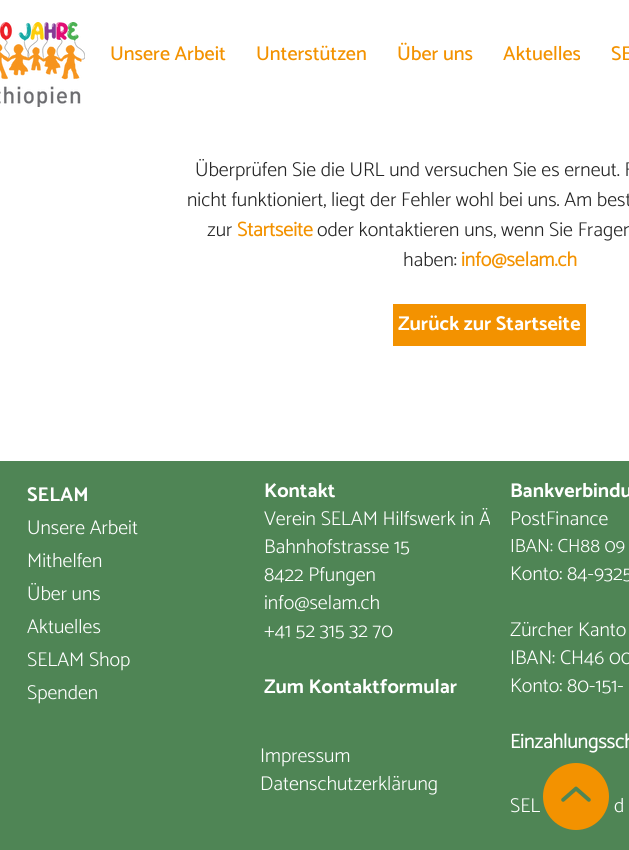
#include <cairo.h>
#include <math.h>
#include <stddef.h>

typedef struct { double x, y; const char *s; } line_t;

static void ink(cairo_t *ctx, unsigned color) {
    cairo_set_source_rgb(ctx, (color >> 16) / 255.0, (color >> 8 & 255) / 255.0, (color & 255) / 255.0);
}

static void paste(cairo_t *ctx, const char *path, double x, double y, double w, double h) {
    cairo_surface_t *image = cairo_image_surface_create_from_png(path);
    cairo_save(ctx);
    cairo_set_source_surface(ctx, image, x, y);
    cairo_rectangle(ctx, x, y, w, h);
    cairo_fill(ctx);
    cairo_restore(ctx);
    cairo_surface_destroy(image);
}

int main(void) {
    cairo_surface_t *surface = cairo_image_surface_create(CAIRO_FORMAT_RGB24, 629, 850);
    cairo_t *ctx = cairo_create(surface);
    cairo_font_options_t *options = cairo_font_options_create();
    cairo_font_options_set_hint_metrics(options, CAIRO_HINT_METRICS_OFF);
    cairo_font_options_set_hint_style(options, CAIRO_HINT_STYLE_NONE);
    cairo_set_font_options(ctx, options);
    cairo_set_miter_limit(ctx, 4);
    ink(ctx, 0xFFFFFF);
    cairo_paint(ctx);
    paste(ctx, "media/1.png", 0, 22, 85, 85);
    cairo_select_font_face(ctx, "Catamaran Medium", CAIRO_FONT_SLANT_NORMAL, CAIRO_FONT_WEIGHT_NORMAL);
    cairo_set_font_size(ctx, 20);
    ink(ctx, 0xF39200);
    {
        static const line_t items[] = {
            {110, 60, "Unsere Arbeit"},
            {256, 60, "Unterstützen"},
            {397, 60, "Über uns"},
            {503, 60, "Aktuelles"},
            {611, 60, "SE"},
        };
        for (size_t i = 0; i < sizeof items / sizeof *items; i++) {
            cairo_move_to(ctx, items[i].x, items[i].y);
            cairo_show_text(ctx, items[i].s);
        }
    }
    cairo_select_font_face(ctx, "Catamaran Light", CAIRO_FONT_SLANT_NORMAL, CAIRO_FONT_WEIGHT_NORMAL);
    ink(ctx, 0x252525);
    {
        static const line_t items[] = {
            {195, 176, "Überprüfen Sie die URL und versuchen Sie es erneut. F"},
            {187, 206, "nicht funktioniert, liegt der Fehler wohl bei uns. Am best"},
            {207, 236, "zur"},
        };
        for (size_t i = 0; i < sizeof items / sizeof *items; i++) {
            cairo_move_to(ctx, items[i].x, items[i].y);
            cairo_show_text(ctx, items[i].s);
        }
    }
    cairo_select_font_face(ctx, "Catamaran", CAIRO_FONT_SLANT_NORMAL, CAIRO_FONT_WEIGHT_BOLD);
    ink(ctx, 0xF39200);
    cairo_move_to(ctx, 237, 236);
    cairo_show_text(ctx, "Startseite");
    cairo_select_font_face(ctx, "Catamaran Light", CAIRO_FONT_SLANT_NORMAL, CAIRO_FONT_WEIGHT_NORMAL);
    ink(ctx, 0x252525);
    cairo_move_to(ctx, 317, 236);
    cairo_show_text(ctx, "oder kontaktieren uns, wenn Sie Fragen");
    cairo_move_to(ctx, 403, 266);
    cairo_show_text(ctx, "haben:");
    cairo_select_font_face(ctx, "Catamaran", CAIRO_FONT_SLANT_NORMAL, CAIRO_FONT_WEIGHT_BOLD);
    ink(ctx, 0xF39200);
    cairo_move_to(ctx, 461, 266);
    cairo_show_text(ctx, "info@selam.ch");
    cairo_rectangle(ctx, 393, 304, 193, 42);
    cairo_fill(ctx);
    cairo_select_font_face(ctx, "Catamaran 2", CAIRO_FONT_SLANT_NORMAL, CAIRO_FONT_WEIGHT_BOLD);
    ink(ctx, 0xFFFFFF);
    cairo_move_to(ctx, 398, 330);
    cairo_show_text(ctx, "Zurück zur Startseite");
    ink(ctx, 0x4F8555);
    cairo_rectangle(ctx, 0, 461, 490, 389);
    cairo_fill(ctx);
    ink(ctx, 0xFFFFFF);
    cairo_move_to(ctx, 27, 501);
    cairo_show_text(ctx, "SELAM");
    cairo_select_font_face(ctx, "Catamaran Light", CAIRO_FONT_SLANT_NORMAL, CAIRO_FONT_WEIGHT_NORMAL);
    {
        static const line_t items[] = {
            {27, 534, "Unsere Arbeit"},
            {27, 567, "Mithelfen"},
            {27, 600, "Über uns"},
            {27, 633, "Aktuelles"},
            {27, 666, "SELAM Shop"},
            {27, 699, "Spenden"},
        };
        for (size_t i = 0; i < sizeof items / sizeof *items; i++) {
            cairo_move_to(ctx, items[i].x, items[i].y);
            cairo_show_text(ctx, items[i].s);
        }
    }
    cairo_select_font_face(ctx, "Catamaran 2", CAIRO_FONT_SLANT_NORMAL, CAIRO_FONT_WEIGHT_BOLD);
    cairo_move_to(ctx, 264, 497);
    cairo_show_text(ctx, "Kontakt");
    cairo_select_font_face(ctx, "Catamaran Light", CAIRO_FONT_SLANT_NORMAL, CAIRO_FONT_WEIGHT_NORMAL);
    {
        static const line_t items[] = {
            {264, 525, "Verein SELAM Hilfswerk in Ä"},
            {264, 553, "Bahnhofstrasse 15"},
            {264, 581, "8422 Pfungen"},
        };
        for (size_t i = 0; i < sizeof items / sizeof *items; i++) {
            cairo_move_to(ctx, items[i].x, items[i].y);
            cairo_show_text(ctx, items[i].s);
        }
    }
    cairo_select_font_face(ctx, "Catamaran 2 Light", CAIRO_FONT_SLANT_NORMAL, CAIRO_FONT_WEIGHT_NORMAL);
    cairo_move_to(ctx, 264, 609);
    cairo_show_text(ctx, "info@selam.ch");
    cairo_select_font_face(ctx, "Catamaran Light", CAIRO_FONT_SLANT_NORMAL, CAIRO_FONT_WEIGHT_NORMAL);
    cairo_move_to(ctx, 264, 637);
    cairo_show_text(ctx, "+41 52 315 32 70");
    cairo_select_font_face(ctx, "Catamaran 2", CAIRO_FONT_SLANT_NORMAL, CAIRO_FONT_WEIGHT_BOLD);
    cairo_move_to(ctx, 264, 693);
    cairo_show_text(ctx, "Zum Kontaktformular");
    cairo_select_font_face(ctx, "Catamaran 2 Light", CAIRO_FONT_SLANT_NORMAL, CAIRO_FONT_WEIGHT_NORMAL);
    cairo_move_to(ctx, 260, 762);
    cairo_show_text(ctx, "Impressum");
    cairo_move_to(ctx, 260, 790);
    cairo_show_text(ctx, "Datenschutzerklärung");
    ink(ctx, 0x4F8555);
    cairo_rectangle(ctx, 490, 461, 139, 389);
    cairo_fill(ctx);
    cairo_select_font_face(ctx, "Catamaran 2", CAIRO_FONT_SLANT_NORMAL, CAIRO_FONT_WEIGHT_BOLD);
    ink(ctx, 0xFFFFFF);
    cairo_move_to(ctx, 510, 497);
    cairo_show_text(ctx, "Bankverbindu");
    cairo_select_font_face(ctx, "Catamaran Light", CAIRO_FONT_SLANT_NORMAL, CAIRO_FONT_WEIGHT_NORMAL);
    cairo_move_to(ctx, 510, 525);
    cairo_show_text(ctx, "PostFinance");
    cairo_set_font_size(ctx, 19);
    cairo_move_to(ctx, 510, 552);
    cairo_show_text(ctx, "IBAN: CH88 09");
    cairo_set_font_size(ctx, 20);
    {
        static const line_t items[] = {
            {510, 580, "Konto: 84-9325"},
            {510, 636, "Zürcher Kanto"},
            {510, 664, "IBAN: CH46 00"},
            {510, 692, "Konto: 80-151-"},
        };
        for (size_t i = 0; i < sizeof items / sizeof *items; i++) {
            cairo_move_to(ctx, items[i].x, items[i].y);
            cairo_show_text(ctx, items[i].s);
        }
    }
    cairo_select_font_face(ctx, "Catamaran", CAIRO_FONT_SLANT_NORMAL, CAIRO_FONT_WEIGHT_BOLD);
    cairo_move_to(ctx, 510, 748);
    cairo_show_text(ctx, "Einzahlungssch");
    cairo_select_font_face(ctx, "Catamaran Light", CAIRO_FONT_SLANT_NORMAL, CAIRO_FONT_WEIGHT_NORMAL);
    cairo_move_to(ctx, 510, 812);
    cairo_show_text(ctx, "SEL");
    cairo_move_to(ctx, 614, 812);
    cairo_show_text(ctx, "d");
    paste(ctx, "media/2.png", 543, 763, 66, 67);
    cairo_surface_write_to_png(surface, "image.png");
    cairo_font_options_destroy(options);
    cairo_destroy(ctx);
    cairo_surface_destroy(surface);
    return 0;
}
